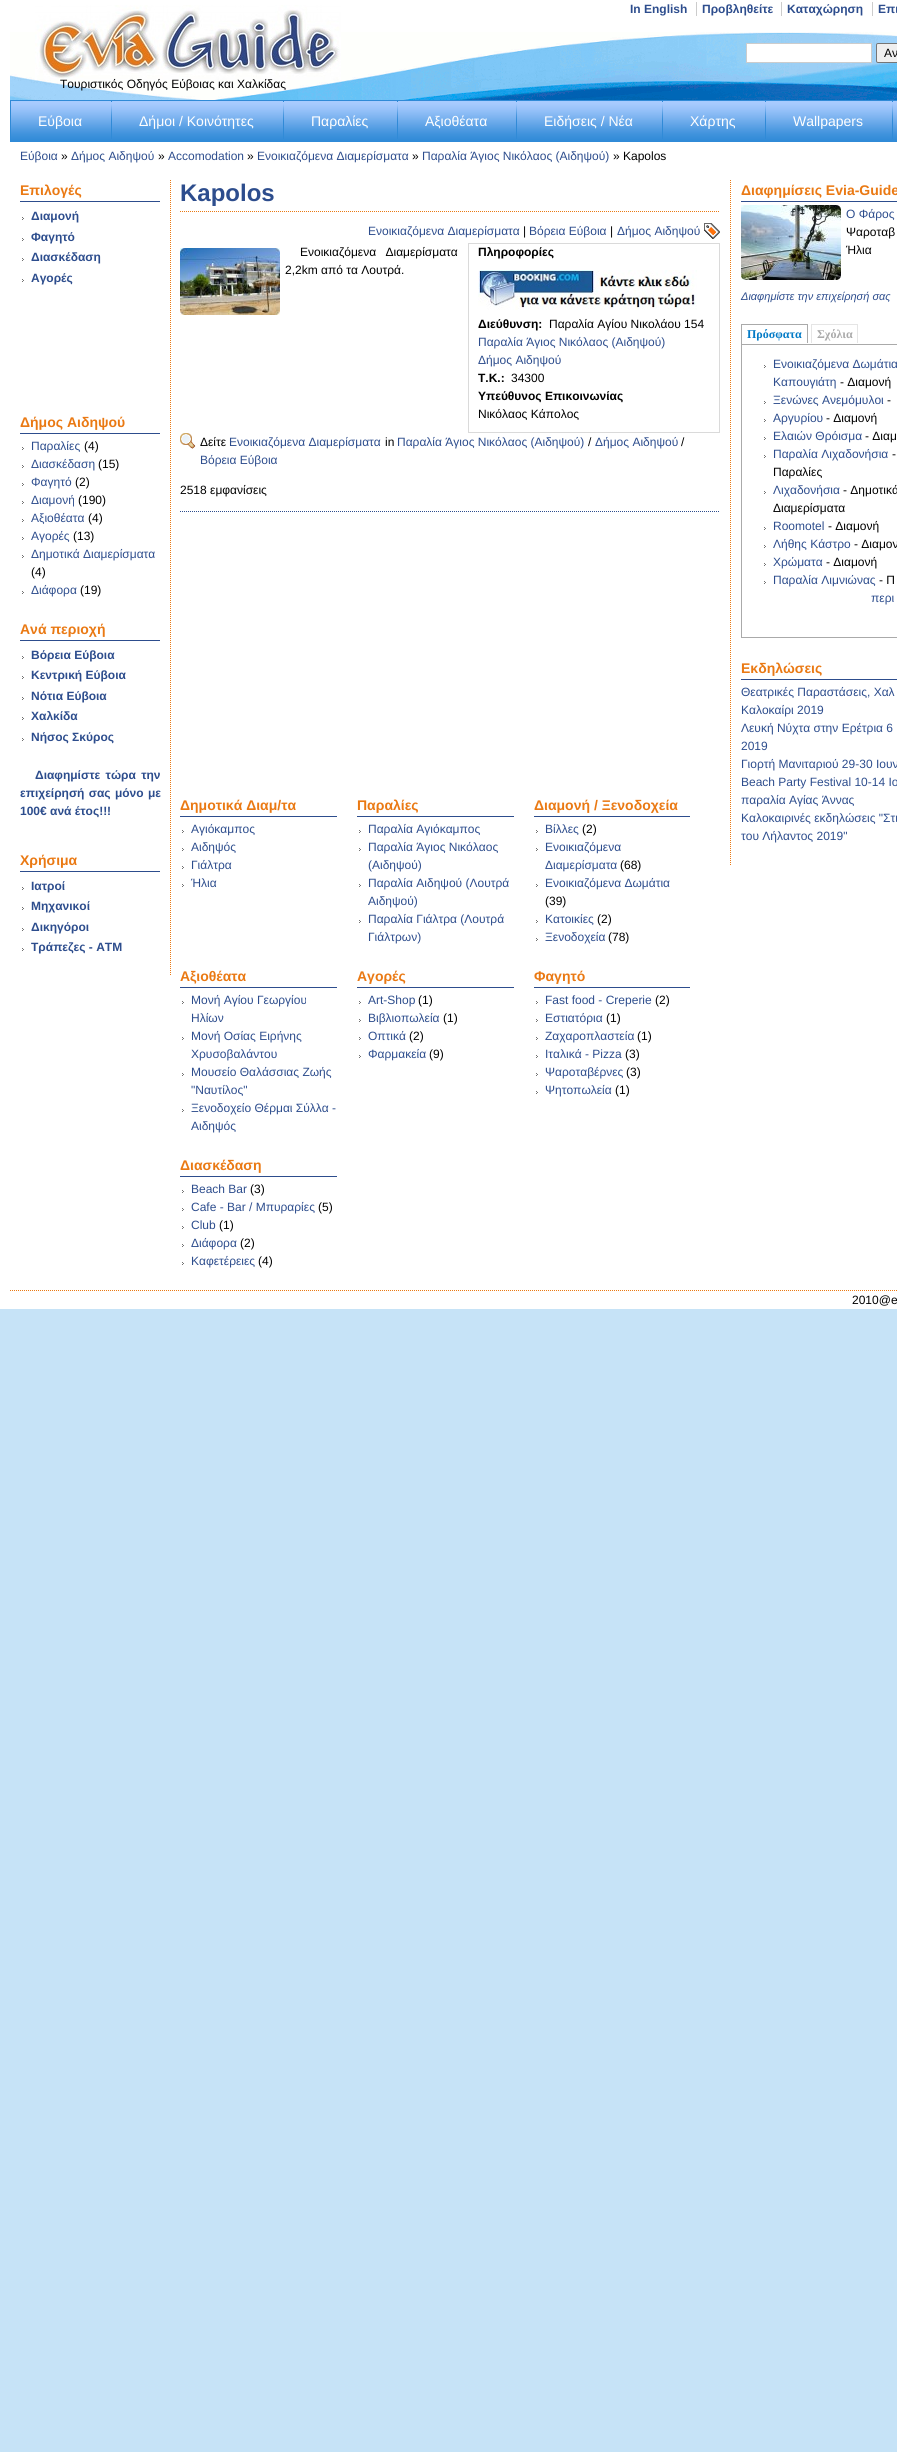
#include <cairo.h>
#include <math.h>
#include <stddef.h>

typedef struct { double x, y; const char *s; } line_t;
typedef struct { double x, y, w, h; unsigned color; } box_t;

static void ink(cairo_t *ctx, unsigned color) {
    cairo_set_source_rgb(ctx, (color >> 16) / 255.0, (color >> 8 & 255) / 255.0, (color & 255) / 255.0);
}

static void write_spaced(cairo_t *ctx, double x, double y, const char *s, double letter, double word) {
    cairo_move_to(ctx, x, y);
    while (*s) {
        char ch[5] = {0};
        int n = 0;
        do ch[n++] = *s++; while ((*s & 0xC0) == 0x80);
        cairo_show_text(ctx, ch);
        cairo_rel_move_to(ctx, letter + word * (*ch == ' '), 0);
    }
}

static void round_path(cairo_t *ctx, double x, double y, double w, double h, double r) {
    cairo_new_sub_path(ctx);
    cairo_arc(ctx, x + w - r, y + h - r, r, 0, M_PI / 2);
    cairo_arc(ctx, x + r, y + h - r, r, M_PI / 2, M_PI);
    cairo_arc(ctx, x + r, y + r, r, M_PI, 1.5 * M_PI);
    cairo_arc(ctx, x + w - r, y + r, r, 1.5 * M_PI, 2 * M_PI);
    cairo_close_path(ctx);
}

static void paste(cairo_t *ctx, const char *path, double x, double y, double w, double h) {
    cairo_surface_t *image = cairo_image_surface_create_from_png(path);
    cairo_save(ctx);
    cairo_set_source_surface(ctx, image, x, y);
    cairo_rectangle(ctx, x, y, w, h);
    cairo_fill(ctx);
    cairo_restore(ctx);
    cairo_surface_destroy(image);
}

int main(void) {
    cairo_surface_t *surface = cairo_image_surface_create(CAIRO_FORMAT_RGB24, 897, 2452);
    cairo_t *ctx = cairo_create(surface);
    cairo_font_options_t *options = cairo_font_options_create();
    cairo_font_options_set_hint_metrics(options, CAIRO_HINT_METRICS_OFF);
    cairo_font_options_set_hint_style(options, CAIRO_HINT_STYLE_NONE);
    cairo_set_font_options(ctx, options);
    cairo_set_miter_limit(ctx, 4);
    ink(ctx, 0xC6E3F7);
    cairo_paint(ctx);
    ink(ctx, 0xFFFFFF);
    cairo_rectangle(ctx, 0, 0, 897, 1309);
    cairo_fill(ctx);
    paste(ctx, "media/1.png", 10, 32, 887, 68);
    cairo_select_font_face(ctx, "Liberation Sans", CAIRO_FONT_SLANT_NORMAL, CAIRO_FONT_WEIGHT_BOLD);
    cairo_set_font_size(ctx, 12);
    ink(ctx, 0x2D4D8D);
    cairo_move_to(ctx, 630, 13);
    cairo_show_text(ctx, "In English");
    cairo_move_to(ctx, 702, 13);
    cairo_show_text(ctx, "Προβληθείτε");
    ink(ctx, 0xCCCCCC);
    cairo_rectangle(ctx, 696, 2, 1, 14);
    cairo_fill(ctx);
    ink(ctx, 0x2D4D8D);
    cairo_move_to(ctx, 787, 13);
    cairo_show_text(ctx, "Καταχώρηση");
    ink(ctx, 0xCCCCCC);
    cairo_rectangle(ctx, 781, 2, 1, 14);
    cairo_fill(ctx);
    ink(ctx, 0x2D4D8D);
    cairo_move_to(ctx, 878, 13);
    cairo_show_text(ctx, "Επι");
    ink(ctx, 0xCCCCCC);
    cairo_rectangle(ctx, 872, 2, 1, 14);
    cairo_fill(ctx);
    ink(ctx, 0xFFFFFF);
    cairo_rectangle(ctx, 746.5, 43.5, 125, 19);
    cairo_fill_preserve(ctx);
    ink(ctx, 0xCCCCCC);
    cairo_set_line_width(ctx, 1);
    cairo_stroke(ctx);
    ink(ctx, 0xEFEFEF);
    round_path(ctx, 876.5, 43.5, 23, 19, 1.5);
    cairo_fill_preserve(ctx);
    ink(ctx, 0x767676);
    cairo_stroke(ctx);
    cairo_select_font_face(ctx, "Liberation Sans", CAIRO_FONT_SLANT_NORMAL, CAIRO_FONT_WEIGHT_NORMAL);
    ink(ctx, 0x000000);
    cairo_move_to(ctx, 884, 57);
    cairo_show_text(ctx, "Αν");
    paste(ctx, "media/2.png", 35, 5, 306, 75);
    cairo_move_to(ctx, 60, 88);
    cairo_show_text(ctx, "Τουριστικός Οδηγός Εύβοιας και Χαλκίδας");
    paste(ctx, "media/3.png", 11, 101, 886, 40);
    cairo_rectangle(ctx, 10.5, 100.5, 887, 41);
    ink(ctx, 0x308AD7);
    cairo_stroke(ctx);
    paste(ctx, "media/4.png", 111, 101, 1, 38);
    cairo_set_font_size(ctx, 14);
    ink(ctx, 0xFFFFFF);
    cairo_move_to(ctx, 38, 126);
    cairo_show_text(ctx, "Εύβοια");
    paste(ctx, "media/4.png", 283, 101, 1, 38);
    cairo_move_to(ctx, 139, 126);
    cairo_show_text(ctx, "Δήμοι / Κοινότητες");
    paste(ctx, "media/4.png", 397, 101, 1, 38);
    cairo_move_to(ctx, 311, 126);
    cairo_show_text(ctx, "Παραλίες");
    paste(ctx, "media/4.png", 516, 101, 1, 38);
    cairo_move_to(ctx, 425, 126);
    cairo_show_text(ctx, "Αξιοθέατα");
    paste(ctx, "media/4.png", 662, 101, 1, 38);
    cairo_move_to(ctx, 544, 126);
    cairo_show_text(ctx, "Ειδήσεις / Νέα");
    paste(ctx, "media/4.png", 765, 101, 1, 38);
    cairo_move_to(ctx, 690, 126);
    cairo_show_text(ctx, "Χάρτης");
    paste(ctx, "media/4.png", 892, 101, 1, 38);
    cairo_move_to(ctx, 793, 126);
    cairo_show_text(ctx, "Wallpapers");
    cairo_set_font_size(ctx, 12);
    ink(ctx, 0x2D4D8D);
    cairo_move_to(ctx, 20, 160);
    cairo_show_text(ctx, "Εύβοια");
    ink(ctx, 0x000000);
    cairo_move_to(ctx, 61, 160);
    cairo_show_text(ctx, "»");
    ink(ctx, 0x2D4D8D);
    cairo_move_to(ctx, 71, 160);
    cairo_show_text(ctx, "Δήμος Αιδηψού");
    ink(ctx, 0x000000);
    cairo_move_to(ctx, 158, 160);
    cairo_show_text(ctx, "»");
    ink(ctx, 0x2D4D8D);
    cairo_move_to(ctx, 168, 160);
    cairo_show_text(ctx, "Accomodation");
    ink(ctx, 0x000000);
    cairo_move_to(ctx, 247, 160);
    cairo_show_text(ctx, "»");
    ink(ctx, 0x2D4D8D);
    cairo_move_to(ctx, 257, 160);
    cairo_show_text(ctx, "Ενοικιαζόμενα Διαμερίσματα");
    ink(ctx, 0x000000);
    cairo_move_to(ctx, 412, 160);
    cairo_show_text(ctx, "»");
    ink(ctx, 0x2D4D8D);
    cairo_move_to(ctx, 422, 160);
    cairo_show_text(ctx, "Παραλία Άγιος Νικόλαος (Αιδηψού)");
    ink(ctx, 0x000000);
    cairo_move_to(ctx, 613, 160);
    cairo_show_text(ctx, "» Kapolos");
    cairo_new_path(ctx);
    cairo_move_to(ctx, 170.5, 180);
    cairo_line_to(ctx, 170.5, 976);
    ink(ctx, 0xEA7913);
    cairo_set_dash(ctx, (double[]){1, 1}, 2, 0);
    cairo_stroke(ctx);
    ink(ctx, 0x2D4D8D);
    cairo_rectangle(ctx, 20, 201, 140, 1);
    cairo_fill(ctx);
    cairo_select_font_face(ctx, "Liberation Sans", CAIRO_FONT_SLANT_NORMAL, CAIRO_FONT_WEIGHT_BOLD);
    cairo_set_font_size(ctx, 14);
    ink(ctx, 0xEA7913);
    cairo_move_to(ctx, 20, 195);
    cairo_show_text(ctx, "Επιλογές");
    paste(ctx, "media/5.png", 22, 217, 2, 3);
    cairo_set_font_size(ctx, 12);
    ink(ctx, 0x2D4D8D);
    cairo_move_to(ctx, 31, 220);
    cairo_show_text(ctx, "Διαμονή");
    paste(ctx, "media/5.png", 22, 238, 2, 3);
    cairo_move_to(ctx, 31, 241);
    cairo_show_text(ctx, "Φαγητό");
    paste(ctx, "media/5.png", 22, 258, 2, 3);
    cairo_move_to(ctx, 31, 261);
    cairo_show_text(ctx, "Διασκέδαση");
    paste(ctx, "media/5.png", 22, 279, 2, 3);
    cairo_move_to(ctx, 31, 282);
    cairo_show_text(ctx, "Αγορές");
    cairo_rectangle(ctx, 20, 433, 140, 1);
    cairo_fill(ctx);
    cairo_set_font_size(ctx, 14);
    ink(ctx, 0xEA7913);
    cairo_move_to(ctx, 20, 427);
    cairo_show_text(ctx, "Δήμος Αιδηψού");
    paste(ctx, "media/5.png", 22, 447, 2, 3);
    cairo_select_font_face(ctx, "Liberation Sans", CAIRO_FONT_SLANT_NORMAL, CAIRO_FONT_WEIGHT_NORMAL);
    cairo_set_font_size(ctx, 12);
    ink(ctx, 0x2D4D8D);
    cairo_move_to(ctx, 31, 450);
    cairo_show_text(ctx, "Παραλίες");
    ink(ctx, 0x000000);
    cairo_move_to(ctx, 84, 450);
    cairo_show_text(ctx, "(4)");
    paste(ctx, "media/5.png", 22, 465, 2, 3);
    ink(ctx, 0x2D4D8D);
    cairo_move_to(ctx, 31, 468);
    cairo_show_text(ctx, "Διασκέδαση");
    ink(ctx, 0x000000);
    cairo_move_to(ctx, 98, 468);
    cairo_show_text(ctx, "(15)");
    paste(ctx, "media/5.png", 22, 483, 2, 3);
    ink(ctx, 0x2D4D8D);
    cairo_move_to(ctx, 31, 486);
    cairo_show_text(ctx, "Φαγητό");
    ink(ctx, 0x000000);
    cairo_move_to(ctx, 75, 486);
    cairo_show_text(ctx, "(2)");
    paste(ctx, "media/5.png", 22, 501, 2, 3);
    ink(ctx, 0x2D4D8D);
    cairo_move_to(ctx, 31, 504);
    cairo_show_text(ctx, "Διαμονή");
    ink(ctx, 0x000000);
    cairo_move_to(ctx, 78, 504);
    cairo_show_text(ctx, "(190)");
    paste(ctx, "media/5.png", 22, 519, 2, 3);
    ink(ctx, 0x2D4D8D);
    cairo_move_to(ctx, 31, 522);
    cairo_show_text(ctx, "Αξιοθέατα");
    ink(ctx, 0x000000);
    cairo_move_to(ctx, 88, 522);
    cairo_show_text(ctx, "(4)");
    paste(ctx, "media/5.png", 22, 537, 2, 3);
    ink(ctx, 0x2D4D8D);
    cairo_move_to(ctx, 31, 540);
    cairo_show_text(ctx, "Αγορές");
    ink(ctx, 0x000000);
    cairo_move_to(ctx, 73, 540);
    cairo_show_text(ctx, "(13)");
    paste(ctx, "media/5.png", 22, 555, 2, 3);
    ink(ctx, 0x2D4D8D);
    cairo_move_to(ctx, 31, 558);
    cairo_show_text(ctx, "Δημοτικά Διαμερίσματα");
    ink(ctx, 0x000000);
    cairo_move_to(ctx, 31, 576);
    cairo_show_text(ctx, "(4)");
    paste(ctx, "media/5.png", 22, 591, 2, 3);
    ink(ctx, 0x2D4D8D);
    cairo_move_to(ctx, 31, 594);
    cairo_show_text(ctx, "Διάφορα");
    ink(ctx, 0x000000);
    cairo_move_to(ctx, 80, 594);
    cairo_show_text(ctx, "(19)");
    ink(ctx, 0x2D4D8D);
    cairo_rectangle(ctx, 20, 640, 140, 1);
    cairo_fill(ctx);
    cairo_select_font_face(ctx, "Liberation Sans", CAIRO_FONT_SLANT_NORMAL, CAIRO_FONT_WEIGHT_BOLD);
    cairo_set_font_size(ctx, 14);
    ink(ctx, 0xEA7913);
    cairo_move_to(ctx, 20, 634);
    cairo_show_text(ctx, "Ανά περιοχή");
    paste(ctx, "media/5.png", 22, 656, 2, 3);
    cairo_set_font_size(ctx, 12);
    ink(ctx, 0x2D4D8D);
    cairo_move_to(ctx, 31, 659);
    cairo_show_text(ctx, "Βόρεια Εύβοια");
    paste(ctx, "media/5.png", 22, 676, 2, 3);
    cairo_move_to(ctx, 31, 679);
    cairo_show_text(ctx, "Κεντρική Εύβοια");
    paste(ctx, "media/5.png", 22, 697, 2, 3);
    cairo_move_to(ctx, 31, 700);
    cairo_show_text(ctx, "Νότια Εύβοια");
    paste(ctx, "media/5.png", 22, 717, 2, 3);
    cairo_move_to(ctx, 31, 720);
    cairo_show_text(ctx, "Χαλκίδα");
    paste(ctx, "media/5.png", 22, 738, 2, 3);
    cairo_move_to(ctx, 31, 741);
    cairo_show_text(ctx, "Νήσος Σκύρος");
    write_spaced(ctx, 35, 779, "Διαφημίστε τώρα την", 0, 2);
    write_spaced(ctx, 20, 797, "επιχείρησή σας μόνο με", 0, 1);
    cairo_move_to(ctx, 20, 815);
    cairo_show_text(ctx, "100€ ανά έτος!!!");
    cairo_rectangle(ctx, 20, 871, 140, 1);
    cairo_fill(ctx);
    cairo_set_font_size(ctx, 14);
    ink(ctx, 0xEA7913);
    cairo_move_to(ctx, 20, 865);
    cairo_show_text(ctx, "Χρήσιμα");
    paste(ctx, "media/5.png", 22, 887, 2, 3);
    cairo_set_font_size(ctx, 12);
    ink(ctx, 0x2D4D8D);
    cairo_move_to(ctx, 31, 890);
    cairo_show_text(ctx, "Ιατροί");
    paste(ctx, "media/5.png", 22, 907, 2, 3);
    cairo_move_to(ctx, 31, 910);
    cairo_show_text(ctx, "Μηχανικοί");
    paste(ctx, "media/5.png", 22, 928, 2, 3);
    cairo_move_to(ctx, 31, 931);
    cairo_show_text(ctx, "Δικηγόροι");
    paste(ctx, "media/5.png", 22, 948, 2, 3);
    cairo_move_to(ctx, 31, 951);
    cairo_show_text(ctx, "Τράπεζες - ΑΤΜ");
    cairo_new_path(ctx);
    cairo_move_to(ctx, 180, 211.5);
    cairo_line_to(ctx, 720, 211.5);
    ink(ctx, 0xEA7913);
    cairo_stroke(ctx);
    cairo_set_font_size(ctx, 24);
    ink(ctx, 0x2D4D8D);
    cairo_move_to(ctx, 180, 201);
    cairo_show_text(ctx, "Kapolos");
    cairo_new_path(ctx);
    cairo_move_to(ctx, 180, 511.5);
    cairo_line_to(ctx, 720, 511.5);
    cairo_stroke(ctx);
    paste(ctx, "media/6.png", 704, 223, 16, 16);
    cairo_select_font_face(ctx, "Liberation Sans", CAIRO_FONT_SLANT_NORMAL, CAIRO_FONT_WEIGHT_NORMAL);
    cairo_set_font_size(ctx, 12);
    cairo_move_to(ctx, 368, 235);
    cairo_show_text(ctx, "Ενοικιαζόμενα Διαμερίσματα");
    ink(ctx, 0x000000);
    cairo_move_to(ctx, 523, 235);
    cairo_show_text(ctx, "|");
    ink(ctx, 0x2D4D8D);
    cairo_move_to(ctx, 529, 235);
    cairo_show_text(ctx, "Βόρεια Εύβοια");
    ink(ctx, 0x000000);
    cairo_move_to(ctx, 610, 235);
    cairo_show_text(ctx, "|");
    ink(ctx, 0x2D4D8D);
    cairo_move_to(ctx, 617, 235);
    cairo_show_text(ctx, "Δήμος Αιδηψού");
    paste(ctx, "media/7.png", 180, 248, 100, 67);
    ink(ctx, 0x000000);
    write_spaced(ctx, 300, 256, "Ενοικιαζόμενα Διαμερίσματα", 0, 6);
    cairo_move_to(ctx, 285, 274);
    cairo_show_text(ctx, "2,2km από τα Λουτρά.");
    cairo_rectangle(ctx, 468.5, 243.5, 251, 189);
    ink(ctx, 0xDADADA);
    cairo_set_dash(ctx, NULL, 0, 0);
    cairo_stroke(ctx);
    cairo_select_font_face(ctx, "Liberation Sans", CAIRO_FONT_SLANT_NORMAL, CAIRO_FONT_WEIGHT_BOLD);
    ink(ctx, 0x000000);
    cairo_move_to(ctx, 478, 256);
    cairo_show_text(ctx, "Πληροφορίες");
    paste(ctx, "media/8.png", 478, 270, 219, 40);
    cairo_move_to(ctx, 478, 328);
    cairo_show_text(ctx, "Διεύθυνση:");
    cairo_select_font_face(ctx, "Liberation Sans", CAIRO_FONT_SLANT_NORMAL, CAIRO_FONT_WEIGHT_NORMAL);
    cairo_move_to(ctx, 549, 328);
    cairo_show_text(ctx, "Παραλία Αγίου Νικολάου 154");
    ink(ctx, 0x2D4D8D);
    cairo_move_to(ctx, 478, 346);
    cairo_show_text(ctx, "Παραλία Άγιος Νικόλαος (Αιδηψού)");
    cairo_move_to(ctx, 478, 364);
    cairo_show_text(ctx, "Δήμος Αιδηψού");
    cairo_select_font_face(ctx, "Liberation Sans", CAIRO_FONT_SLANT_NORMAL, CAIRO_FONT_WEIGHT_BOLD);
    ink(ctx, 0x000000);
    cairo_move_to(ctx, 478, 382);
    cairo_show_text(ctx, "Τ.Κ.:");
    cairo_select_font_face(ctx, "Liberation Sans", CAIRO_FONT_SLANT_NORMAL, CAIRO_FONT_WEIGHT_NORMAL);
    cairo_move_to(ctx, 511, 382);
    cairo_show_text(ctx, "34300");
    cairo_select_font_face(ctx, "Liberation Sans", CAIRO_FONT_SLANT_NORMAL, CAIRO_FONT_WEIGHT_BOLD);
    cairo_move_to(ctx, 478, 400);
    cairo_show_text(ctx, "Υπεύθυνος Επικοινωνίας");
    cairo_select_font_face(ctx, "Liberation Sans", CAIRO_FONT_SLANT_NORMAL, CAIRO_FONT_WEIGHT_NORMAL);
    cairo_move_to(ctx, 478, 418);
    cairo_show_text(ctx, "Νικόλαος Κάπολος");
    paste(ctx, "media/9.png", 180, 433, 16, 16);
    cairo_move_to(ctx, 200, 446);
    cairo_show_text(ctx, "Δείτε");
    ink(ctx, 0x2D4D8D);
    cairo_move_to(ctx, 229, 446);
    cairo_show_text(ctx, "Ενοικιαζόμενα Διαμερίσματα");
    ink(ctx, 0x000000);
    cairo_move_to(ctx, 385, 446);
    cairo_show_text(ctx, "in");
    ink(ctx, 0x2D4D8D);
    cairo_move_to(ctx, 397, 446);
    cairo_show_text(ctx, "Παραλία Άγιος Νικόλαος (Αιδηψού)");
    ink(ctx, 0x000000);
    cairo_move_to(ctx, 588, 446);
    cairo_show_text(ctx, "/");
    ink(ctx, 0x2D4D8D);
    cairo_move_to(ctx, 595, 446);
    cairo_show_text(ctx, "Δήμος Αιδηψού");
    ink(ctx, 0x000000);
    cairo_move_to(ctx, 681, 446);
    cairo_show_text(ctx, "/");
    ink(ctx, 0x2D4D8D);
    cairo_move_to(ctx, 200, 464);
    cairo_show_text(ctx, "Βόρεια Εύβοια");
    ink(ctx, 0x000000);
    cairo_move_to(ctx, 180, 494);
    cairo_show_text(ctx, "2518 εμφανίσεις");
    ink(ctx, 0x2D4D8D);
    cairo_rectangle(ctx, 180, 816, 157, 1);
    cairo_fill(ctx);
    cairo_select_font_face(ctx, "Liberation Sans", CAIRO_FONT_SLANT_NORMAL, CAIRO_FONT_WEIGHT_BOLD);
    cairo_set_font_size(ctx, 14);
    ink(ctx, 0xEA7913);
    cairo_move_to(ctx, 180, 810);
    cairo_show_text(ctx, "Δημοτικά Διαμ/τα");
    paste(ctx, "media/5.png", 182, 830, 2, 3);
    cairo_select_font_face(ctx, "Liberation Sans", CAIRO_FONT_SLANT_NORMAL, CAIRO_FONT_WEIGHT_NORMAL);
    cairo_set_font_size(ctx, 12);
    ink(ctx, 0x2D4D8D);
    cairo_move_to(ctx, 191, 833);
    cairo_show_text(ctx, "Αγιόκαμπος");
    paste(ctx, "media/5.png", 182, 848, 2, 3);
    cairo_move_to(ctx, 191, 851);
    cairo_show_text(ctx, "Αιδηψός");
    paste(ctx, "media/5.png", 182, 866, 2, 3);
    cairo_move_to(ctx, 191, 869);
    cairo_show_text(ctx, "Γιάλτρα");
    paste(ctx, "media/5.png", 182, 884, 2, 3);
    cairo_move_to(ctx, 191, 887);
    cairo_show_text(ctx, "Ήλια");
    cairo_rectangle(ctx, 357, 816, 157, 1);
    cairo_fill(ctx);
    cairo_select_font_face(ctx, "Liberation Sans", CAIRO_FONT_SLANT_NORMAL, CAIRO_FONT_WEIGHT_BOLD);
    cairo_set_font_size(ctx, 14);
    ink(ctx, 0xEA7913);
    cairo_move_to(ctx, 357, 810);
    cairo_show_text(ctx, "Παραλίες");
    paste(ctx, "media/5.png", 359, 830, 2, 3);
    cairo_select_font_face(ctx, "Liberation Sans", CAIRO_FONT_SLANT_NORMAL, CAIRO_FONT_WEIGHT_NORMAL);
    cairo_set_font_size(ctx, 12);
    ink(ctx, 0x2D4D8D);
    cairo_move_to(ctx, 368, 833);
    cairo_show_text(ctx, "Παραλία Αγιόκαμπος");
    paste(ctx, "media/5.png", 359, 848, 2, 3);
    cairo_move_to(ctx, 368, 851);
    cairo_show_text(ctx, "Παραλία Άγιος Νικόλαος");
    cairo_move_to(ctx, 368, 869);
    cairo_show_text(ctx, "(Αιδηψού)");
    paste(ctx, "media/5.png", 359, 884, 2, 3);
    cairo_move_to(ctx, 368, 887);
    cairo_show_text(ctx, "Παραλία Αιδηψού (Λουτρά");
    cairo_move_to(ctx, 368, 905);
    cairo_show_text(ctx, "Αιδηψού)");
    paste(ctx, "media/5.png", 359, 920, 2, 3);
    cairo_move_to(ctx, 368, 923);
    cairo_show_text(ctx, "Παραλία Γιάλτρα (Λουτρά");
    cairo_move_to(ctx, 368, 941);
    cairo_show_text(ctx, "Γιάλτρων)");
    cairo_rectangle(ctx, 534, 816, 156, 1);
    cairo_fill(ctx);
    cairo_select_font_face(ctx, "Liberation Sans", CAIRO_FONT_SLANT_NORMAL, CAIRO_FONT_WEIGHT_BOLD);
    cairo_set_font_size(ctx, 14);
    ink(ctx, 0xEA7913);
    cairo_move_to(ctx, 534, 810);
    cairo_show_text(ctx, "Διαμονή / Ξενοδοχεία");
    paste(ctx, "media/5.png", 536, 830, 2, 3);
    cairo_select_font_face(ctx, "Liberation Sans", CAIRO_FONT_SLANT_NORMAL, CAIRO_FONT_WEIGHT_NORMAL);
    cairo_set_font_size(ctx, 12);
    ink(ctx, 0x2D4D8D);
    cairo_move_to(ctx, 545, 833);
    cairo_show_text(ctx, "Βίλλες");
    ink(ctx, 0x000000);
    cairo_move_to(ctx, 582, 833);
    cairo_show_text(ctx, "(2)");
    paste(ctx, "media/5.png", 536, 848, 2, 3);
    ink(ctx, 0x2D4D8D);
    cairo_move_to(ctx, 545, 851);
    cairo_show_text(ctx, "Ενοικιαζόμενα");
    cairo_move_to(ctx, 545, 869);
    cairo_show_text(ctx, "Διαμερίσματα");
    ink(ctx, 0x000000);
    cairo_move_to(ctx, 620, 869);
    cairo_show_text(ctx, "(68)");
    paste(ctx, "media/5.png", 536, 884, 2, 3);
    ink(ctx, 0x2D4D8D);
    cairo_move_to(ctx, 545, 887);
    cairo_show_text(ctx, "Ενοικιαζόμενα Δωμάτια");
    ink(ctx, 0x000000);
    cairo_move_to(ctx, 545, 905);
    cairo_show_text(ctx, "(39)");
    paste(ctx, "media/5.png", 536, 920, 2, 3);
    ink(ctx, 0x2D4D8D);
    cairo_move_to(ctx, 545, 923);
    cairo_show_text(ctx, "Κατοικίες");
    ink(ctx, 0x000000);
    cairo_move_to(ctx, 597, 923);
    cairo_show_text(ctx, "(2)");
    paste(ctx, "media/5.png", 536, 938, 2, 3);
    ink(ctx, 0x2D4D8D);
    cairo_move_to(ctx, 545, 941);
    cairo_show_text(ctx, "Ξενοδοχεία");
    ink(ctx, 0x000000);
    cairo_move_to(ctx, 608, 941);
    cairo_show_text(ctx, "(78)");
    ink(ctx, 0x2D4D8D);
    cairo_rectangle(ctx, 180, 987, 157, 1);
    cairo_fill(ctx);
    cairo_select_font_face(ctx, "Liberation Sans", CAIRO_FONT_SLANT_NORMAL, CAIRO_FONT_WEIGHT_BOLD);
    cairo_set_font_size(ctx, 14);
    ink(ctx, 0xEA7913);
    cairo_move_to(ctx, 180, 981);
    cairo_show_text(ctx, "Αξιοθέατα");
    paste(ctx, "media/5.png", 182, 1001, 2, 3);
    cairo_select_font_face(ctx, "Liberation Sans", CAIRO_FONT_SLANT_NORMAL, CAIRO_FONT_WEIGHT_NORMAL);
    cairo_set_font_size(ctx, 12);
    ink(ctx, 0x2D4D8D);
    cairo_move_to(ctx, 191, 1004);
    cairo_show_text(ctx, "Μονή Αγίου Γεωργίου");
    cairo_move_to(ctx, 191, 1022);
    cairo_show_text(ctx, "Ηλίων");
    paste(ctx, "media/5.png", 182, 1037, 2, 3);
    cairo_move_to(ctx, 191, 1040);
    cairo_show_text(ctx, "Μονή Οσίας Ειρήνης");
    cairo_move_to(ctx, 191, 1058);
    cairo_show_text(ctx, "Χρυσοβαλάντου");
    paste(ctx, "media/5.png", 182, 1073, 2, 3);
    cairo_move_to(ctx, 191, 1076);
    cairo_show_text(ctx, "Μουσείο Θαλάσσιας Ζωής");
    cairo_move_to(ctx, 191, 1094);
    cairo_show_text(ctx, "\"Ναυτίλος\"");
    paste(ctx, "media/5.png", 182, 1109, 2, 3);
    cairo_move_to(ctx, 191, 1112);
    cairo_show_text(ctx, "Ξενοδοχείο Θέρμαι Σύλλα -");
    cairo_move_to(ctx, 191, 1130);
    cairo_show_text(ctx, "Αιδηψός");
    cairo_rectangle(ctx, 357, 987, 157, 1);
    cairo_fill(ctx);
    cairo_select_font_face(ctx, "Liberation Sans", CAIRO_FONT_SLANT_NORMAL, CAIRO_FONT_WEIGHT_BOLD);
    cairo_set_font_size(ctx, 14);
    ink(ctx, 0xEA7913);
    cairo_move_to(ctx, 357, 981);
    cairo_show_text(ctx, "Αγορές");
    paste(ctx, "media/5.png", 359, 1001, 2, 3);
    cairo_select_font_face(ctx, "Liberation Sans", CAIRO_FONT_SLANT_NORMAL, CAIRO_FONT_WEIGHT_NORMAL);
    cairo_set_font_size(ctx, 12);
    ink(ctx, 0x2D4D8D);
    cairo_move_to(ctx, 368, 1004);
    cairo_show_text(ctx, "Art-Shop");
    ink(ctx, 0x000000);
    cairo_move_to(ctx, 418, 1004);
    cairo_show_text(ctx, "(1)");
    paste(ctx, "media/5.png", 359, 1019, 2, 3);
    ink(ctx, 0x2D4D8D);
    cairo_move_to(ctx, 368, 1022);
    cairo_show_text(ctx, "Βιβλιοπωλεία");
    ink(ctx, 0x000000);
    cairo_move_to(ctx, 443, 1022);
    cairo_show_text(ctx, "(1)");
    paste(ctx, "media/5.png", 359, 1037, 2, 3);
    ink(ctx, 0x2D4D8D);
    cairo_move_to(ctx, 368, 1040);
    cairo_show_text(ctx, "Οπτικά");
    ink(ctx, 0x000000);
    cairo_move_to(ctx, 409, 1040);
    cairo_show_text(ctx, "(2)");
    paste(ctx, "media/5.png", 359, 1055, 2, 3);
    ink(ctx, 0x2D4D8D);
    cairo_move_to(ctx, 368, 1058);
    cairo_show_text(ctx, "Φαρμακεία");
    ink(ctx, 0x000000);
    cairo_move_to(ctx, 429, 1058);
    cairo_show_text(ctx, "(9)");
    ink(ctx, 0x2D4D8D);
    cairo_rectangle(ctx, 534, 987, 156, 1);
    cairo_fill(ctx);
    cairo_select_font_face(ctx, "Liberation Sans", CAIRO_FONT_SLANT_NORMAL, CAIRO_FONT_WEIGHT_BOLD);
    cairo_set_font_size(ctx, 14);
    ink(ctx, 0xEA7913);
    cairo_move_to(ctx, 534, 981);
    cairo_show_text(ctx, "Φαγητό");
    paste(ctx, "media/5.png", 536, 1001, 2, 3);
    cairo_select_font_face(ctx, "Liberation Sans", CAIRO_FONT_SLANT_NORMAL, CAIRO_FONT_WEIGHT_NORMAL);
    cairo_set_font_size(ctx, 12);
    ink(ctx, 0x2D4D8D);
    cairo_move_to(ctx, 545, 1004);
    cairo_show_text(ctx, "Fast food - Creperie");
    ink(ctx, 0x000000);
    cairo_move_to(ctx, 655, 1004);
    cairo_show_text(ctx, "(2)");
    paste(ctx, "media/5.png", 536, 1019, 2, 3);
    ink(ctx, 0x2D4D8D);
    cairo_move_to(ctx, 545, 1022);
    cairo_show_text(ctx, "Εστιατόρια");
    ink(ctx, 0x000000);
    cairo_move_to(ctx, 606, 1022);
    cairo_show_text(ctx, "(1)");
    paste(ctx, "media/5.png", 536, 1037, 2, 3);
    ink(ctx, 0x2D4D8D);
    cairo_move_to(ctx, 545, 1040);
    cairo_show_text(ctx, "Ζαχαροπλαστεία");
    ink(ctx, 0x000000);
    cairo_move_to(ctx, 637, 1040);
    cairo_show_text(ctx, "(1)");
    paste(ctx, "media/5.png", 536, 1055, 2, 3);
    ink(ctx, 0x2D4D8D);
    cairo_move_to(ctx, 545, 1058);
    cairo_show_text(ctx, "Ιταλικά - Pizza");
    ink(ctx, 0x000000);
    cairo_move_to(ctx, 625, 1058);
    cairo_show_text(ctx, "(3)");
    paste(ctx, "media/5.png", 536, 1073, 2, 3);
    ink(ctx, 0x2D4D8D);
    cairo_move_to(ctx, 545, 1076);
    cairo_show_text(ctx, "Ψαροταβέρνες");
    ink(ctx, 0x000000);
    cairo_move_to(ctx, 626, 1076);
    cairo_show_text(ctx, "(3)");
    paste(ctx, "media/5.png", 536, 1091, 2, 3);
    ink(ctx, 0x2D4D8D);
    cairo_move_to(ctx, 545, 1094);
    cairo_show_text(ctx, "Ψητοπωλεία");
    ink(ctx, 0x000000);
    cairo_move_to(ctx, 615, 1094);
    cairo_show_text(ctx, "(1)");
    ink(ctx, 0x2D4D8D);
    cairo_rectangle(ctx, 180, 1176, 157, 1);
    cairo_fill(ctx);
    cairo_select_font_face(ctx, "Liberation Sans", CAIRO_FONT_SLANT_NORMAL, CAIRO_FONT_WEIGHT_BOLD);
    cairo_set_font_size(ctx, 14);
    ink(ctx, 0xEA7913);
    cairo_move_to(ctx, 180, 1170);
    cairo_show_text(ctx, "Διασκέδαση");
    paste(ctx, "media/5.png", 182, 1190, 2, 3);
    cairo_select_font_face(ctx, "Liberation Sans", CAIRO_FONT_SLANT_NORMAL, CAIRO_FONT_WEIGHT_NORMAL);
    cairo_set_font_size(ctx, 12);
    ink(ctx, 0x2D4D8D);
    cairo_move_to(ctx, 191, 1193);
    cairo_show_text(ctx, "Beach Bar");
    ink(ctx, 0x000000);
    cairo_move_to(ctx, 250, 1193);
    cairo_show_text(ctx, "(3)");
    paste(ctx, "media/5.png", 182, 1208, 2, 3);
    ink(ctx, 0x2D4D8D);
    cairo_move_to(ctx, 191, 1211);
    cairo_show_text(ctx, "Cafe - Bar / Μπυραρίες");
    ink(ctx, 0x000000);
    cairo_move_to(ctx, 318, 1211);
    cairo_show_text(ctx, "(5)");
    paste(ctx, "media/5.png", 182, 1226, 2, 3);
    ink(ctx, 0x2D4D8D);
    cairo_move_to(ctx, 191, 1229);
    cairo_show_text(ctx, "Club");
    ink(ctx, 0x000000);
    cairo_move_to(ctx, 219, 1229);
    cairo_show_text(ctx, "(1)");
    paste(ctx, "media/5.png", 182, 1244, 2, 3);
    ink(ctx, 0x2D4D8D);
    cairo_move_to(ctx, 191, 1247);
    cairo_show_text(ctx, "Διάφορα");
    ink(ctx, 0x000000);
    cairo_move_to(ctx, 240, 1247);
    cairo_show_text(ctx, "(2)");
    paste(ctx, "media/5.png", 182, 1262, 2, 3);
    ink(ctx, 0x2D4D8D);
    cairo_move_to(ctx, 191, 1265);
    cairo_show_text(ctx, "Καφετέρειες");
    ink(ctx, 0x000000);
    cairo_move_to(ctx, 258, 1265);
    cairo_show_text(ctx, "(4)");
    cairo_new_path(ctx);
    cairo_move_to(ctx, 730.5, 180);
    cairo_line_to(ctx, 730.5, 865);
    ink(ctx, 0xEA7913);
    cairo_set_dash(ctx, (double[]){1, 1}, 2, 0);
    cairo_stroke(ctx);
    ink(ctx, 0x2D4D8D);
    cairo_rectangle(ctx, 741, 201, 156, 1);
    cairo_fill(ctx);
    cairo_select_font_face(ctx, "Liberation Sans", CAIRO_FONT_SLANT_NORMAL, CAIRO_FONT_WEIGHT_BOLD);
    cairo_set_font_size(ctx, 14);
    ink(ctx, 0xEA7913);
    cairo_move_to(ctx, 741, 195);
    cairo_show_text(ctx, "Διαφημίσεις Evia-Guide");
    paste(ctx, "media/10.png", 741, 205, 100, 75);
    cairo_select_font_face(ctx, "Liberation Sans", CAIRO_FONT_SLANT_NORMAL, CAIRO_FONT_WEIGHT_NORMAL);
    cairo_set_font_size(ctx, 12);
    ink(ctx, 0x2D4D8D);
    cairo_move_to(ctx, 846, 218);
    cairo_show_text(ctx, "Ο Φάρος");
    ink(ctx, 0x000000);
    cairo_move_to(ctx, 846, 236);
    cairo_show_text(ctx, "Ψαροταβ");
    cairo_move_to(ctx, 846, 254);
    cairo_show_text(ctx, "Ήλια");
    cairo_select_font_face(ctx, "Liberation Sans", CAIRO_FONT_SLANT_ITALIC, CAIRO_FONT_WEIGHT_NORMAL);
    cairo_set_font_size(ctx, 11);
    ink(ctx, 0x2D4D8D);
    cairo_move_to(ctx, 741, 300);
    cairo_show_text(ctx, "Διαφημίστε την επιχείρησή σας");
    ink(ctx, 0xAAAAAA);
    cairo_rectangle(ctx, 741, 344, 156, 1);
    cairo_fill(ctx);
    cairo_select_font_face(ctx, "Liberation Serif", CAIRO_FONT_SLANT_NORMAL, CAIRO_FONT_WEIGHT_BOLD);
    cairo_set_font_size(ctx, 12);
    ink(ctx, 0x027AC6);
    cairo_move_to(ctx, 747, 338);
    cairo_show_text(ctx, "Πρόσφατα");
    {
        static const box_t items[] = {
            {741, 324, 67, 1, 0xAAAAAA},
            {807, 324, 1, 20, 0xAAAAAA},
            {807, 343, 1, 1, 0xFFFFFF},
            {741, 324, 1, 20, 0xAAAAAA},
        };
        for (size_t i = 0; i < sizeof items / sizeof *items; i++) {
            ink(ctx, items[i].color);
            cairo_rectangle(ctx, items[i].x, items[i].y, items[i].w, items[i].h);
            cairo_fill(ctx);
        }
    }
    cairo_move_to(ctx, 817, 338);
    cairo_show_text(ctx, "Σχόλια");
    {
        static const box_t items[] = {
            {811, 324, 47, 1, 0xE5E5E5},
            {857, 324, 1, 19, 0xE5E5E5},
            {811, 324, 1, 19, 0xE5E5E5},
            {741, 637, 156, 1, 0xAAAAAA},
            {741, 345, 1, 293, 0xAAAAAA},
        };
        for (size_t i = 0; i < sizeof items / sizeof *items; i++) {
            ink(ctx, items[i].color);
            cairo_rectangle(ctx, items[i].x, items[i].y, items[i].w, items[i].h);
            cairo_fill(ctx);
        }
    }
    paste(ctx, "media/5.png", 764, 365, 2, 3);
    cairo_select_font_face(ctx, "Liberation Sans", CAIRO_FONT_SLANT_NORMAL, CAIRO_FONT_WEIGHT_NORMAL);
    ink(ctx, 0x2D4D8D);
    cairo_move_to(ctx, 773, 368);
    cairo_show_text(ctx, "Ενοικιαζόμενα Δωμάτια");
    cairo_move_to(ctx, 773, 386);
    cairo_show_text(ctx, "Καπουγιάτη");
    ink(ctx, 0x000000);
    cairo_move_to(ctx, 840, 386);
    cairo_show_text(ctx, "- Διαμονή");
    paste(ctx, "media/5.png", 764, 401, 2, 3);
    ink(ctx, 0x2D4D8D);
    cairo_move_to(ctx, 773, 404);
    cairo_show_text(ctx, "Ξενώνες Ανεμόμυλοι");
    ink(ctx, 0x000000);
    cairo_move_to(ctx, 887, 404);
    cairo_show_text(ctx, "-");
    paste(ctx, "media/5.png", 764, 419, 2, 3);
    ink(ctx, 0x2D4D8D);
    cairo_move_to(ctx, 773, 422);
    cairo_show_text(ctx, "Αργυρίου");
    ink(ctx, 0x000000);
    cairo_move_to(ctx, 826, 422);
    cairo_show_text(ctx, "- Διαμονή");
    paste(ctx, "media/5.png", 764, 437, 2, 3);
    ink(ctx, 0x2D4D8D);
    cairo_move_to(ctx, 773, 440);
    cairo_show_text(ctx, "Ελαιών Θρόισμα");
    ink(ctx, 0x000000);
    cairo_move_to(ctx, 865, 440);
    cairo_show_text(ctx, "- Διαμ");
    paste(ctx, "media/5.png", 764, 455, 2, 3);
    ink(ctx, 0x2D4D8D);
    cairo_move_to(ctx, 773, 458);
    cairo_show_text(ctx, "Παραλία Λιχαδονήσια");
    ink(ctx, 0x000000);
    cairo_move_to(ctx, 892, 458);
    cairo_show_text(ctx, "-");
    cairo_move_to(ctx, 773, 476);
    cairo_show_text(ctx, "Παραλίες");
    paste(ctx, "media/5.png", 764, 491, 2, 3);
    ink(ctx, 0x2D4D8D);
    cairo_move_to(ctx, 773, 494);
    cairo_show_text(ctx, "Λιχαδονήσια");
    ink(ctx, 0x000000);
    cairo_move_to(ctx, 843, 494);
    cairo_show_text(ctx, "- Δημοτικά");
    cairo_move_to(ctx, 773, 512);
    cairo_show_text(ctx, "Διαμερίσματα");
    paste(ctx, "media/5.png", 764, 527, 2, 3);
    ink(ctx, 0x2D4D8D);
    cairo_move_to(ctx, 773, 530);
    cairo_show_text(ctx, "Roomotel");
    ink(ctx, 0x000000);
    cairo_move_to(ctx, 828, 530);
    cairo_show_text(ctx, "- Διαμονή");
    paste(ctx, "media/5.png", 764, 545, 2, 3);
    ink(ctx, 0x2D4D8D);
    cairo_move_to(ctx, 773, 548);
    cairo_show_text(ctx, "Λήθης Κάστρο");
    ink(ctx, 0x000000);
    cairo_move_to(ctx, 854, 548);
    cairo_show_text(ctx, "- Διαμον");
    paste(ctx, "media/5.png", 764, 563, 2, 3);
    ink(ctx, 0x2D4D8D);
    cairo_move_to(ctx, 773, 566);
    cairo_show_text(ctx, "Χρώματα");
    ink(ctx, 0x000000);
    cairo_move_to(ctx, 826, 566);
    cairo_show_text(ctx, "- Διαμονή");
    paste(ctx, "media/5.png", 764, 581, 2, 3);
    ink(ctx, 0x2D4D8D);
    cairo_move_to(ctx, 773, 584);
    cairo_show_text(ctx, "Παραλία Λιμνιώνας");
    ink(ctx, 0x000000);
    cairo_move_to(ctx, 879, 584);
    cairo_show_text(ctx, "- Π");
    ink(ctx, 0x2D4D8D);
    cairo_move_to(ctx, 871, 602);
    cairo_show_text(ctx, "περι");
    cairo_rectangle(ctx, 741, 679, 156, 1);
    cairo_fill(ctx);
    cairo_select_font_face(ctx, "Liberation Sans", CAIRO_FONT_SLANT_NORMAL, CAIRO_FONT_WEIGHT_BOLD);
    cairo_set_font_size(ctx, 14);
    ink(ctx, 0xEA7913);
    cairo_move_to(ctx, 741, 673);
    cairo_show_text(ctx, "Εκδηλώσεις");
    cairo_select_font_face(ctx, "Liberation Sans", CAIRO_FONT_SLANT_NORMAL, CAIRO_FONT_WEIGHT_NORMAL);
    cairo_set_font_size(ctx, 12);
    ink(ctx, 0x2D4D8D);
    {
        static const line_t items[] = {
            {741, 696, "Θεατρικές Παραστάσεις, Χαλ"},
            {741, 714, "Καλοκαίρι 2019"},
            {741, 732, "Λευκή Νύχτα στην Ερέτρια 6"},
            {741, 750, "2019"},
            {741, 768, "Γιορτή Μανιταριού 29-30 Ιουν"},
            {741, 786, "Beach Party Festival 10-14 Ιο"},
            {741, 804, "παραλία Αγίας Άννας"},
            {741, 822, "Καλοκαιρινές εκδηλώσεις \"Στι"},
            {741, 840, "του Λήλαντος 2019\""},
        };
        for (size_t i = 0; i < sizeof items / sizeof *items; i++) {
            cairo_move_to(ctx, items[i].x, items[i].y);
            cairo_show_text(ctx, items[i].s);
        }
    }
    cairo_new_path(ctx);
    cairo_move_to(ctx, 10, 1290.5);
    cairo_line_to(ctx, 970, 1290.5);
    ink(ctx, 0xEA7913);
    cairo_stroke(ctx);
    ink(ctx, 0x000000);
    cairo_move_to(ctx, 852, 1304);
    cairo_show_text(ctx, "2010@e");
    cairo_surface_write_to_png(surface, "image.png");
    cairo_font_options_destroy(options);
    cairo_destroy(ctx);
    cairo_surface_destroy(surface);
    return 0;
}
